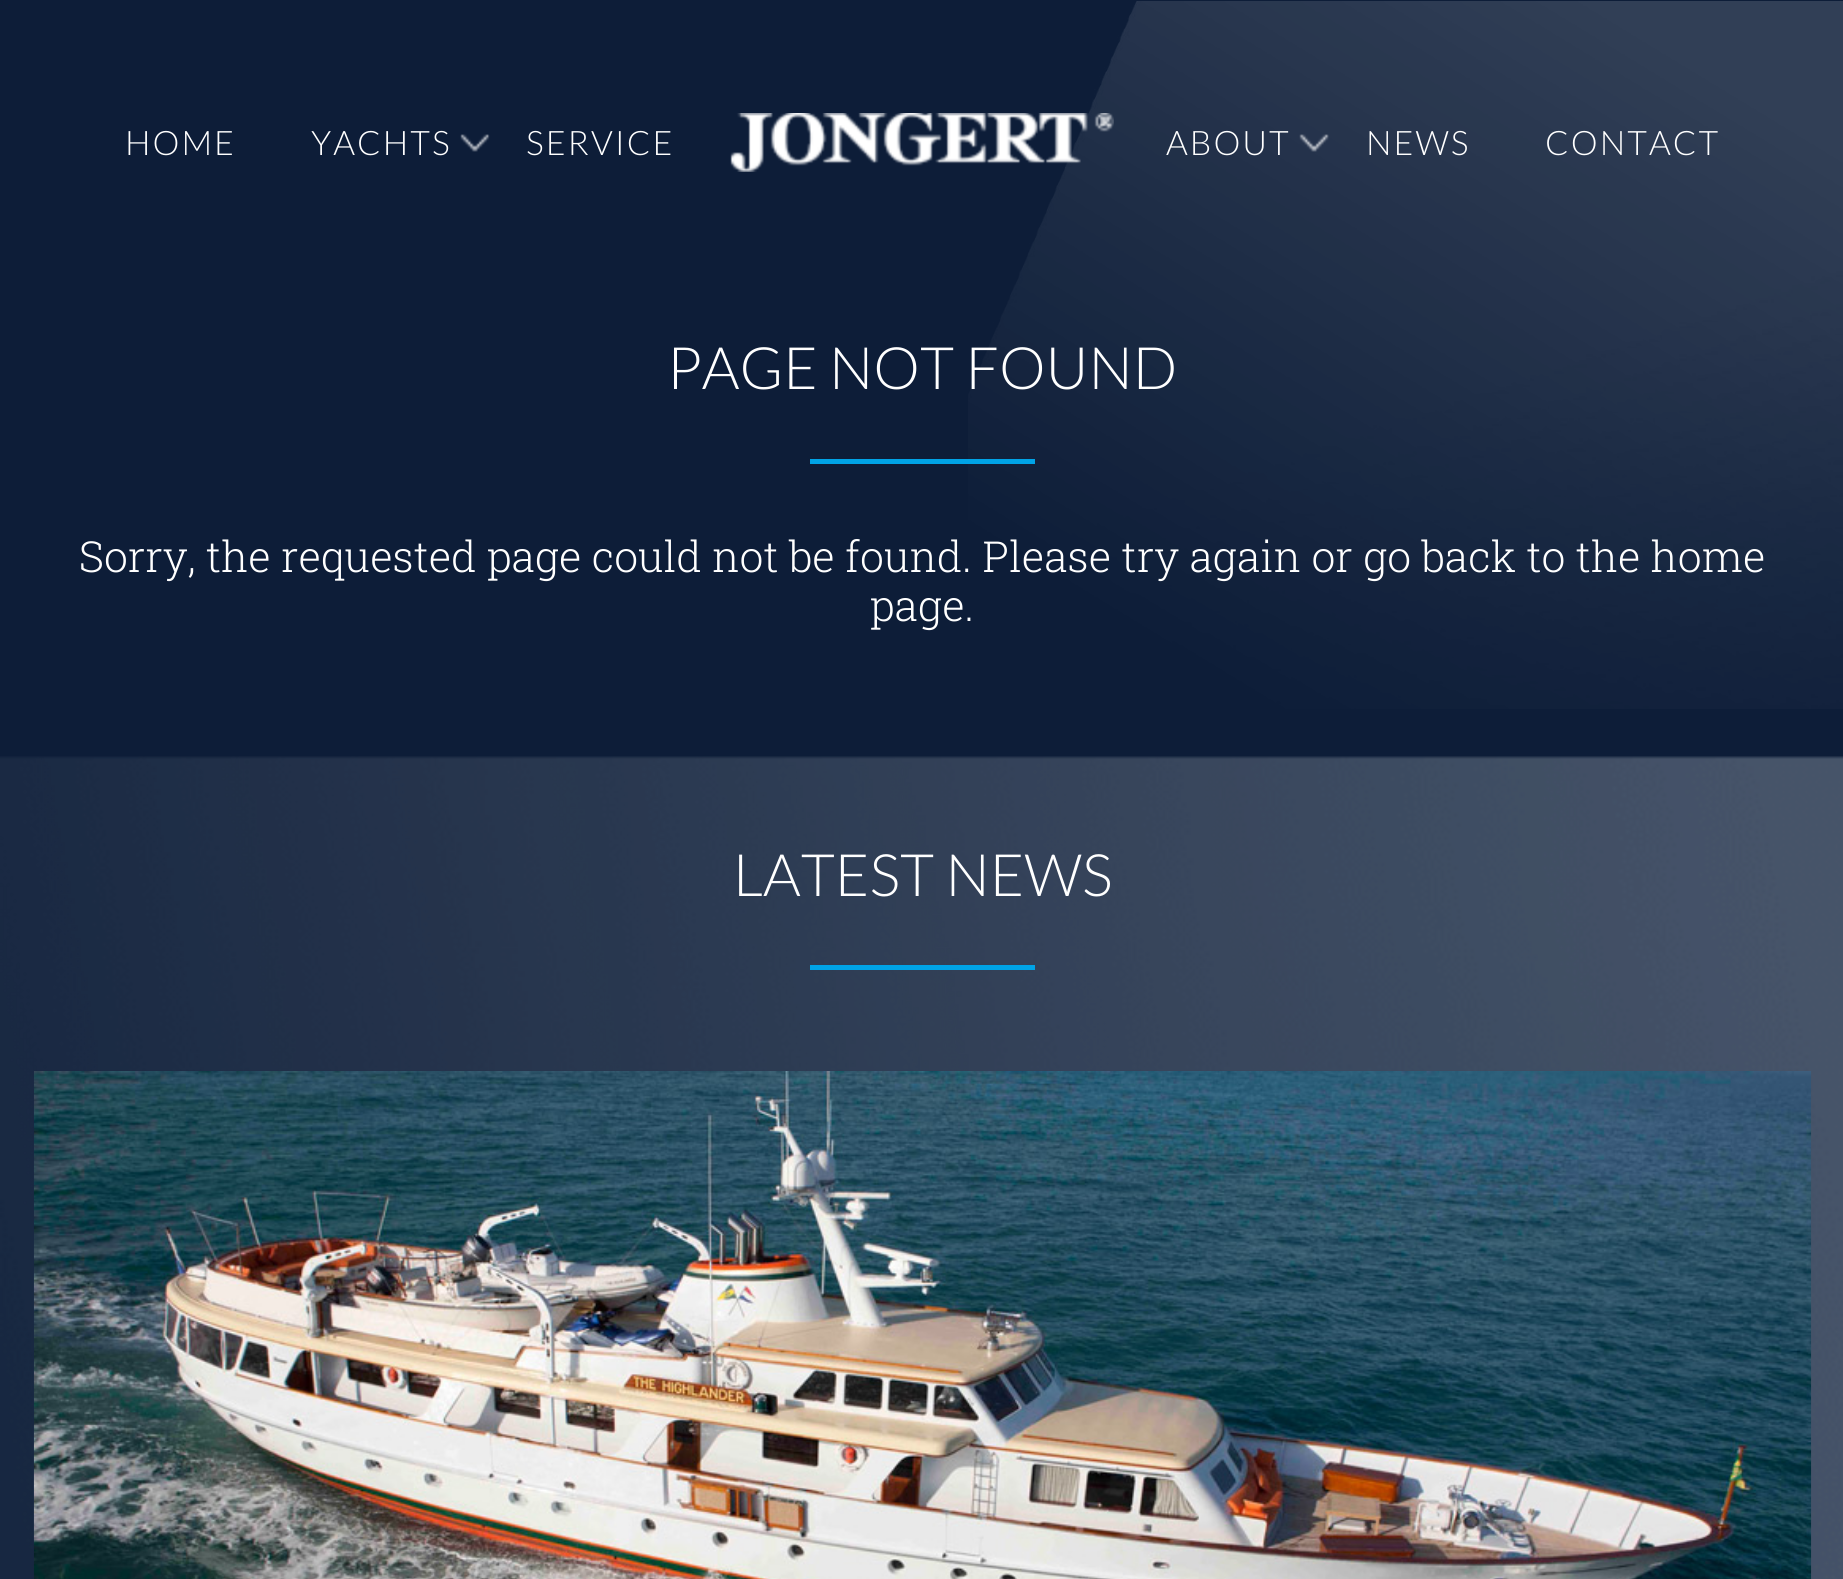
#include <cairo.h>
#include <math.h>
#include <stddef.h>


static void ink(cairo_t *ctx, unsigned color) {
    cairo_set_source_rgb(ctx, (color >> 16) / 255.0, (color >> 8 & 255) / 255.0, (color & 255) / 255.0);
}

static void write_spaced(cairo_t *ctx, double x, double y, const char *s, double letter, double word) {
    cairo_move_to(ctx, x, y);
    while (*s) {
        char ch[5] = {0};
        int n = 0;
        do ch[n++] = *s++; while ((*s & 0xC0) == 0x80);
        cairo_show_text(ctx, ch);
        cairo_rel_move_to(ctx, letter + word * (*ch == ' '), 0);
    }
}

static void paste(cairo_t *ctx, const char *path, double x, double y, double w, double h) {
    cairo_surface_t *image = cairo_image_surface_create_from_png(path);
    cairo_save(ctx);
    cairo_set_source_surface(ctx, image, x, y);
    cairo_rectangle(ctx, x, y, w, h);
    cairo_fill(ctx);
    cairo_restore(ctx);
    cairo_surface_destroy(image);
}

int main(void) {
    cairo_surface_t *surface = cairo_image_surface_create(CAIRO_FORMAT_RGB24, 1843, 1579);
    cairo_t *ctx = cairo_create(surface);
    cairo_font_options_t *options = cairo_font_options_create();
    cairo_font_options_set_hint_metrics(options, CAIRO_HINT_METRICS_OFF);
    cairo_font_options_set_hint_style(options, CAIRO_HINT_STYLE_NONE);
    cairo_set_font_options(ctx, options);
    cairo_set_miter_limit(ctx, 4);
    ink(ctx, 0x0D1D38);
    cairo_paint(ctx);
    paste(ctx, "media/4.png", 968, 1, 875, 708);
    paste(ctx, "media/1.png", 730, 113, 384, 59);
    cairo_select_font_face(ctx, "Lato Light", CAIRO_FONT_SLANT_NORMAL, CAIRO_FONT_WEIGHT_NORMAL);
    cairo_set_font_size(ctx, 33.75);
    ink(ctx, 0xFFFFFF);
    write_spaced(ctx, 125, 155, "HOME", 2, 0);
    write_spaced(ctx, 311, 155, "YACHTS", 2, 0);
    paste(ctx, "media/2.png", 460, 134, 30, 18);
    write_spaced(ctx, 526, 155, "SERVICE", 2, 0);
    write_spaced(ctx, 1166, 155, "ABOUT", 2, 0);
    paste(ctx, "media/3.png", 1299, 134, 30, 18);
    write_spaced(ctx, 1366, 155, "NEWS", 2, 0);
    write_spaced(ctx, 1545, 155, "CONTACT", 2, 0);
    cairo_set_font_size(ctx, 58.5);
    cairo_move_to(ctx, 667, 389);
    cairo_show_text(ctx, "PAGE NOT FOUND");
    ink(ctx, 0x00A3E6);
    cairo_rectangle(ctx, 810, 459, 225, 5);
    cairo_fill(ctx);
    cairo_select_font_face(ctx, "Roboto Slab Light", CAIRO_FONT_SLANT_NORMAL, CAIRO_FONT_WEIGHT_NORMAL);
    cairo_set_font_size(ctx, 42.75);
    ink(ctx, 0xFFFFFF);
    cairo_move_to(ctx, 79, 572);
    cairo_show_text(ctx, "Sorry, the requested page could not be found. Please try again or go back to the home");
    cairo_move_to(ctx, 870, 621);
    cairo_show_text(ctx, "page.");
    paste(ctx, "media/5.png", 0, 756, 1843, 823);
    cairo_select_font_face(ctx, "Lato Light", CAIRO_FONT_SLANT_NORMAL, CAIRO_FONT_WEIGHT_NORMAL);
    cairo_set_font_size(ctx, 58.5);
    cairo_move_to(ctx, 733, 896);
    cairo_show_text(ctx, "LATEST NEWS");
    ink(ctx, 0x00A3E6);
    cairo_rectangle(ctx, 810, 965, 225, 5);
    cairo_fill(ctx);
    paste(ctx, "media/6.png", 33, 1071, 1779, 508);
    cairo_surface_write_to_png(surface, "image.png");
    cairo_font_options_destroy(options);
    cairo_destroy(ctx);
    cairo_surface_destroy(surface);
    return 0;
}
